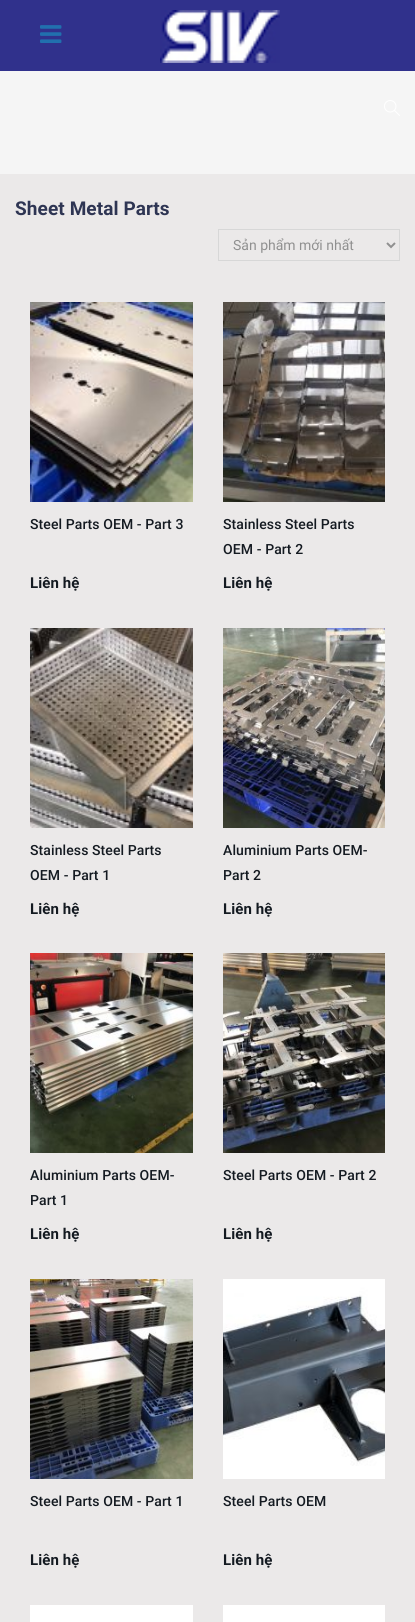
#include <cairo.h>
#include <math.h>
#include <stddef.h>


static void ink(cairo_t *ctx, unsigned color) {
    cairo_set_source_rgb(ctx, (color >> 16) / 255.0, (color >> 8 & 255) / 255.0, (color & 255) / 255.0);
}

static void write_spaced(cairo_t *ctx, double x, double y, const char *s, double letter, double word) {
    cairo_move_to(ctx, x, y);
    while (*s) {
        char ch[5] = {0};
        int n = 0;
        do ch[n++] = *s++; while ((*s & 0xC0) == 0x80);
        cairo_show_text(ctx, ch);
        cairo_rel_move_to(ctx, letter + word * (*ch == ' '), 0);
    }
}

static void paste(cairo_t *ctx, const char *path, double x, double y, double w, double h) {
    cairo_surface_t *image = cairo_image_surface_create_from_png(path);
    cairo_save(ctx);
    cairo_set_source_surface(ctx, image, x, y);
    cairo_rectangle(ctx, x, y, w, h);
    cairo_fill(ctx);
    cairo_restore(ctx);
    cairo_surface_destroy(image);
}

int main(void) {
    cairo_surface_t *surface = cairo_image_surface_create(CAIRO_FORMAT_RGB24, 415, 1622);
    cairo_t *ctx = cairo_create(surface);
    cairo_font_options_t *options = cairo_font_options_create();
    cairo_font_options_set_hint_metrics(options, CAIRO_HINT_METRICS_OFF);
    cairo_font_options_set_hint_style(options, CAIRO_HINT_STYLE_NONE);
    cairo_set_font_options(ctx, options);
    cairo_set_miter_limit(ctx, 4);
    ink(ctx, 0xEBE9E9);
    cairo_paint(ctx);
    ink(ctx, 0x30318C);
    cairo_rectangle(ctx, 0, 0, 415, 71);
    cairo_fill(ctx);
    paste(ctx, "media/1.png", 40, 25, 22, 18);
    paste(ctx, "media/2.png", 160, 10, 120, 53);
    ink(ctx, 0xF5F5F5);
    cairo_rectangle(ctx, 0, 71, 415, 103);
    cairo_fill(ctx);
    paste(ctx, "media/3.png", 384, 100, 16, 16);
    cairo_select_font_face(ctx, "Roboto", CAIRO_FONT_SLANT_NORMAL, CAIRO_FONT_WEIGHT_BOLD);
    cairo_set_font_size(ctx, 19);
    ink(ctx, 0x2E3553);
    write_spaced(ctx, 15, 215, "Sheet Metal Parts", 0.1, 0);
    cairo_rectangle(ctx, 218.5, 229.5, 181, 31);
    ink(ctx, 0xD7D7D7);
    cairo_set_line_width(ctx, 1);
    cairo_stroke(ctx);
    cairo_new_path(ctx);
    cairo_move_to(ctx, 387, 243);
    cairo_line_to(ctx, 391, 247);
    cairo_line_to(ctx, 395, 243);
    ink(ctx, 0x909090);
    cairo_set_line_width(ctx, 2);
    cairo_stroke(ctx);
    cairo_select_font_face(ctx, "Roboto", CAIRO_FONT_SLANT_NORMAL, CAIRO_FONT_WEIGHT_NORMAL);
    cairo_set_font_size(ctx, 14);
    cairo_move_to(ctx, 233, 250);
    cairo_show_text(ctx, "Sản phẩm mới nhất");
    paste(ctx, "media/4.png", 30, 302, 163, 200);
    cairo_select_font_face(ctx, "Roboto Medium", CAIRO_FONT_SLANT_NORMAL, CAIRO_FONT_WEIGHT_NORMAL);
    ink(ctx, 0x141A21);
    write_spaced(ctx, 30, 529, "Steel Parts OEM - Part 3", 0.1, 0);
    cairo_select_font_face(ctx, "Roboto", CAIRO_FONT_SLANT_NORMAL, CAIRO_FONT_WEIGHT_BOLD);
    cairo_set_font_size(ctx, 15);
    write_spaced(ctx, 30, 588, "Liên hệ", 0.1, 0);
    paste(ctx, "media/5.png", 223, 302, 162, 200);
    cairo_select_font_face(ctx, "Roboto Medium", CAIRO_FONT_SLANT_NORMAL, CAIRO_FONT_WEIGHT_NORMAL);
    cairo_set_font_size(ctx, 14);
    write_spaced(ctx, 223, 529, "Stainless Steel Parts", 0.1, 0);
    write_spaced(ctx, 223, 554, "OEM - Part 2", 0.1, 0);
    cairo_select_font_face(ctx, "Roboto", CAIRO_FONT_SLANT_NORMAL, CAIRO_FONT_WEIGHT_BOLD);
    cairo_set_font_size(ctx, 15);
    write_spaced(ctx, 223, 588, "Liên hệ", 0.1, 0);
    paste(ctx, "media/6.png", 30, 628, 163, 200);
    cairo_select_font_face(ctx, "Roboto Medium", CAIRO_FONT_SLANT_NORMAL, CAIRO_FONT_WEIGHT_NORMAL);
    cairo_set_font_size(ctx, 14);
    write_spaced(ctx, 30, 855, "Stainless Steel Parts", 0.1, 0);
    write_spaced(ctx, 30, 880, "OEM - Part 1", 0.1, 0);
    cairo_select_font_face(ctx, "Roboto", CAIRO_FONT_SLANT_NORMAL, CAIRO_FONT_WEIGHT_BOLD);
    cairo_set_font_size(ctx, 15);
    write_spaced(ctx, 30, 914, "Liên hệ", 0.1, 0);
    paste(ctx, "media/7.png", 223, 628, 162, 200);
    cairo_select_font_face(ctx, "Roboto Medium", CAIRO_FONT_SLANT_NORMAL, CAIRO_FONT_WEIGHT_NORMAL);
    cairo_set_font_size(ctx, 14);
    write_spaced(ctx, 223, 855, "Aluminium Parts OEM-", 0.1, 0);
    write_spaced(ctx, 223, 880, "Part 2", 0.1, 0);
    cairo_select_font_face(ctx, "Roboto", CAIRO_FONT_SLANT_NORMAL, CAIRO_FONT_WEIGHT_BOLD);
    cairo_set_font_size(ctx, 15);
    write_spaced(ctx, 223, 914, "Liên hệ", 0.1, 0);
    paste(ctx, "media/8.png", 30, 953, 163, 200);
    cairo_select_font_face(ctx, "Roboto Medium", CAIRO_FONT_SLANT_NORMAL, CAIRO_FONT_WEIGHT_NORMAL);
    cairo_set_font_size(ctx, 14);
    write_spaced(ctx, 30, 1180, "Aluminium Parts OEM-", 0.1, 0);
    write_spaced(ctx, 30, 1205, "Part 1", 0.1, 0);
    cairo_select_font_face(ctx, "Roboto", CAIRO_FONT_SLANT_NORMAL, CAIRO_FONT_WEIGHT_BOLD);
    cairo_set_font_size(ctx, 15);
    write_spaced(ctx, 30, 1239, "Liên hệ", 0.1, 0);
    paste(ctx, "media/9.png", 223, 953, 162, 200);
    cairo_select_font_face(ctx, "Roboto Medium", CAIRO_FONT_SLANT_NORMAL, CAIRO_FONT_WEIGHT_NORMAL);
    cairo_set_font_size(ctx, 14);
    write_spaced(ctx, 223, 1180, "Steel Parts OEM - Part 2", 0.1, 0);
    cairo_select_font_face(ctx, "Roboto", CAIRO_FONT_SLANT_NORMAL, CAIRO_FONT_WEIGHT_BOLD);
    cairo_set_font_size(ctx, 15);
    write_spaced(ctx, 223, 1239, "Liên hệ", 0.1, 0);
    paste(ctx, "media/10.png", 30, 1279, 163, 200);
    cairo_select_font_face(ctx, "Roboto Medium", CAIRO_FONT_SLANT_NORMAL, CAIRO_FONT_WEIGHT_NORMAL);
    cairo_set_font_size(ctx, 14);
    write_spaced(ctx, 30, 1506, "Steel Parts OEM - Part 1", 0.1, 0);
    cairo_select_font_face(ctx, "Roboto", CAIRO_FONT_SLANT_NORMAL, CAIRO_FONT_WEIGHT_BOLD);
    cairo_set_font_size(ctx, 15);
    write_spaced(ctx, 30, 1565, "Liên hệ", 0.1, 0);
    paste(ctx, "media/11.png", 223, 1279, 162, 200);
    cairo_select_font_face(ctx, "Roboto Medium", CAIRO_FONT_SLANT_NORMAL, CAIRO_FONT_WEIGHT_NORMAL);
    cairo_set_font_size(ctx, 14);
    write_spaced(ctx, 223, 1506, "Steel Parts OEM", 0.1, 0);
    cairo_select_font_face(ctx, "Roboto", CAIRO_FONT_SLANT_NORMAL, CAIRO_FONT_WEIGHT_BOLD);
    cairo_set_font_size(ctx, 15);
    write_spaced(ctx, 223, 1565, "Liên hệ", 0.1, 0);
    ink(ctx, 0xFFFFFF);
    cairo_rectangle(ctx, 30, 1605, 163, 17);
    cairo_fill(ctx);
    cairo_rectangle(ctx, 223, 1605, 162, 17);
    cairo_fill(ctx);
    cairo_surface_write_to_png(surface, "image.png");
    cairo_font_options_destroy(options);
    cairo_destroy(ctx);
    cairo_surface_destroy(surface);
    return 0;
}
